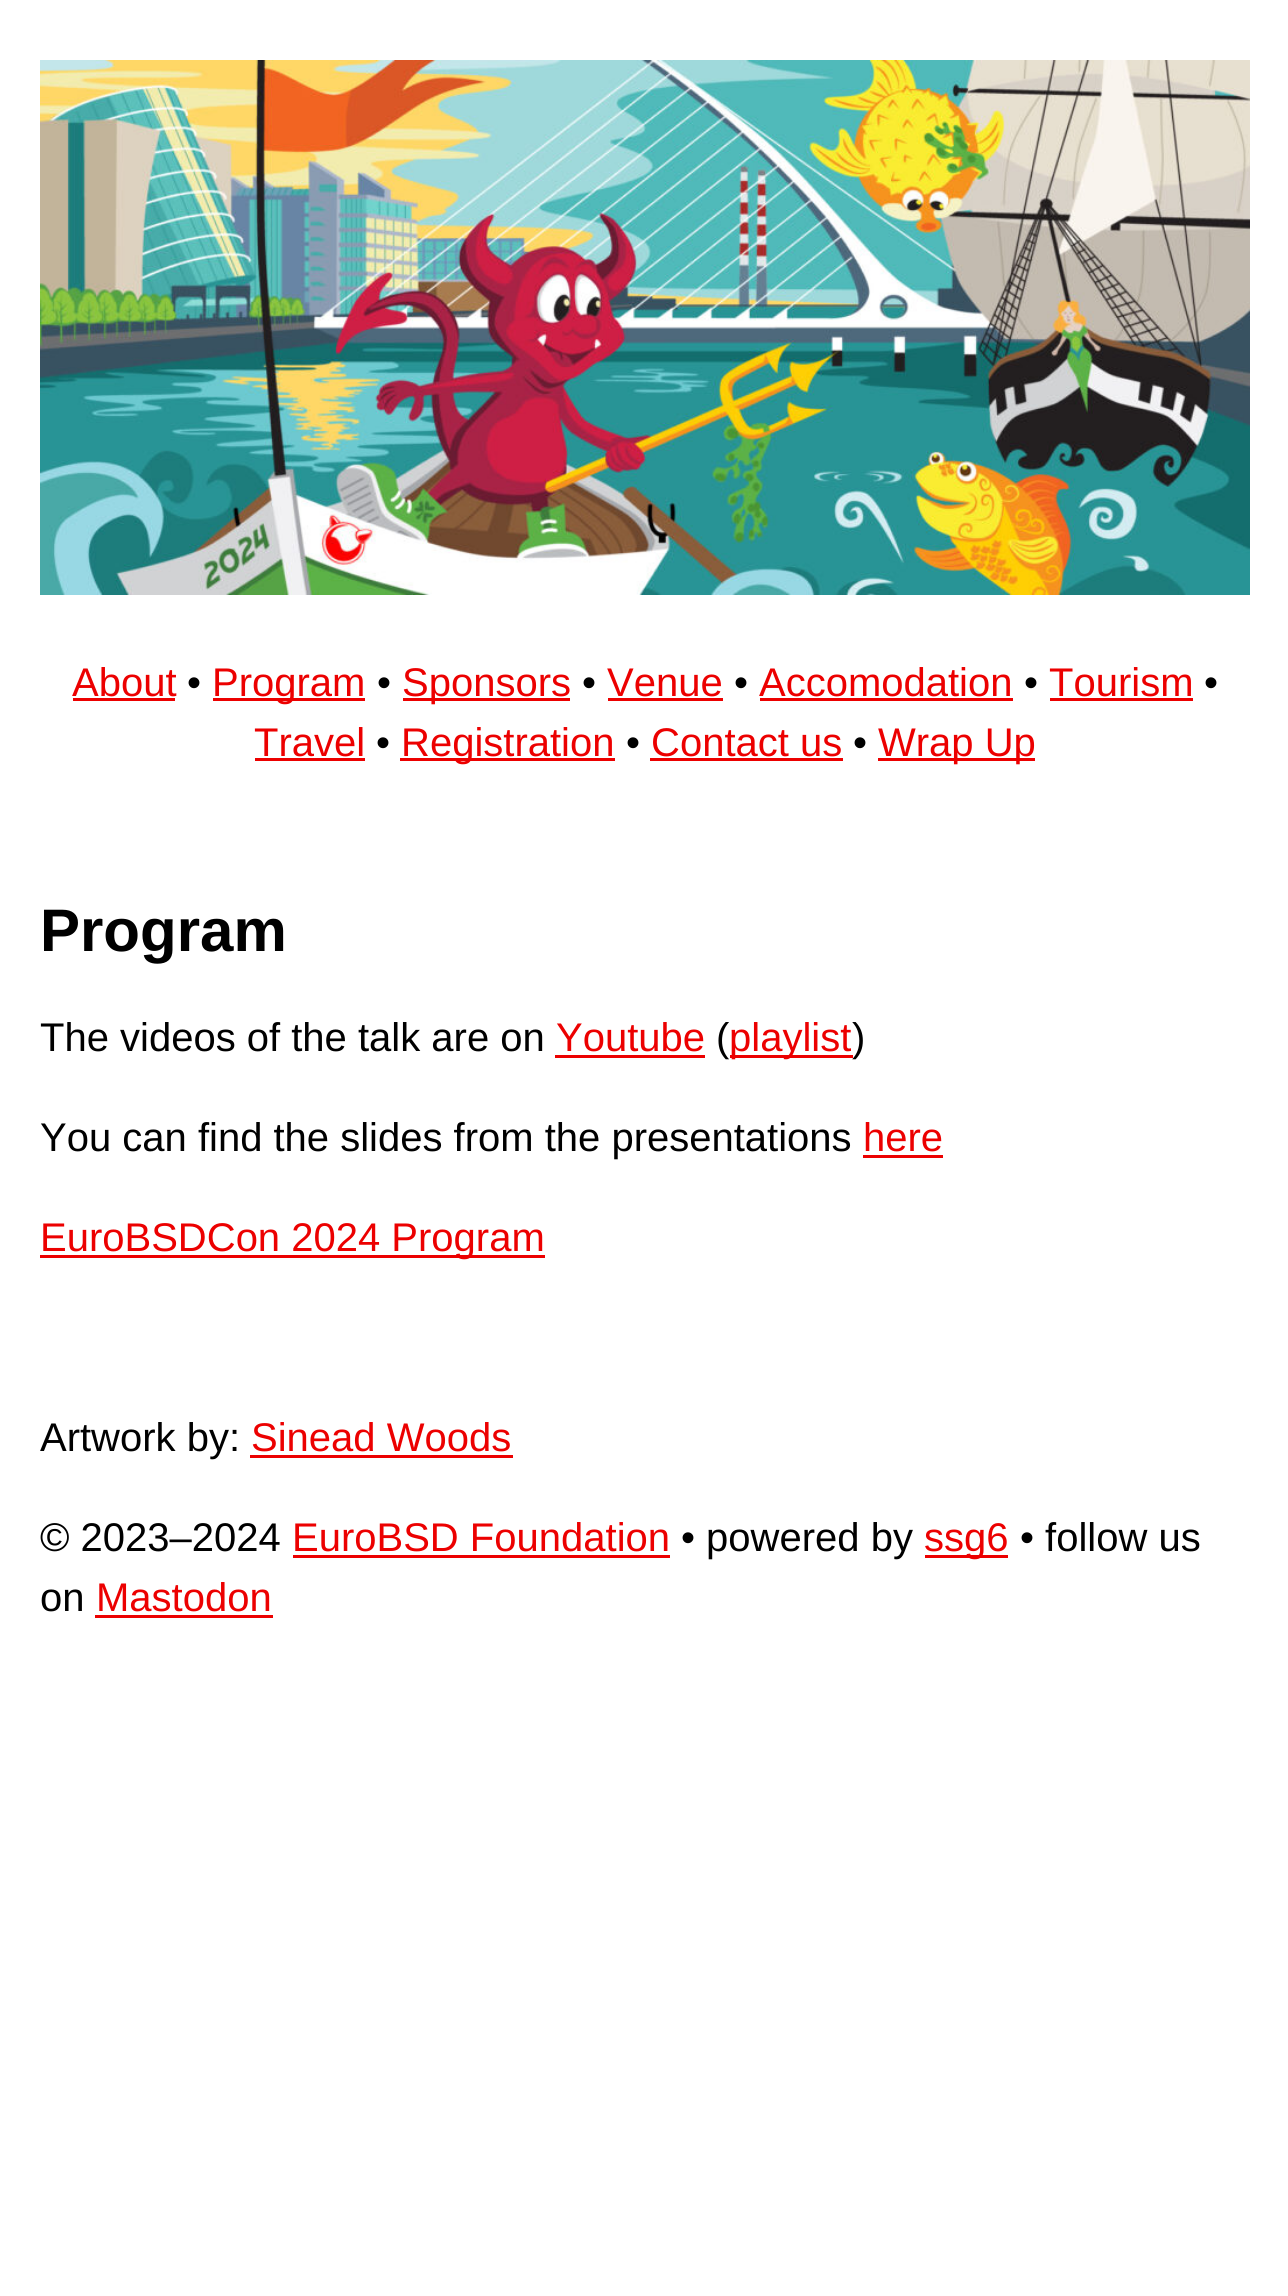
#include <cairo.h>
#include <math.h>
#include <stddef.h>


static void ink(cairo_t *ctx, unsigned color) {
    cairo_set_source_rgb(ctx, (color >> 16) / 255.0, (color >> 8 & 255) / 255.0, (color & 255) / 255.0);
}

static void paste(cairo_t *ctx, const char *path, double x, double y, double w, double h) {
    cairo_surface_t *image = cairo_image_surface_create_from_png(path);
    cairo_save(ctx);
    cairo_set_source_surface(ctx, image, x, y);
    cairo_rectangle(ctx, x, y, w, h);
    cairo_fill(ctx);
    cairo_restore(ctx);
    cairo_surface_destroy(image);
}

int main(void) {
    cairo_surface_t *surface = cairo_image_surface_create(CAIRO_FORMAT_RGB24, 1288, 2296);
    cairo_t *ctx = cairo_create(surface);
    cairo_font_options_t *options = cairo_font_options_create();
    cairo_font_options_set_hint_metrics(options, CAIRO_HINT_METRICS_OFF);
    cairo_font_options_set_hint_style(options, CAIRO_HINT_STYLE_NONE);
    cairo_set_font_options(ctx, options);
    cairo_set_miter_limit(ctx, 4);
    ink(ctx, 0xFFFFFF);
    cairo_paint(ctx);
    paste(ctx, "media/1.png", 40, 60, 1210, 535);
    cairo_select_font_face(ctx, "Liberation Sans", CAIRO_FONT_SLANT_NORMAL, CAIRO_FONT_WEIGHT_NORMAL);
    cairo_set_font_size(ctx, 40);
    ink(ctx, 0xEC0000);
    cairo_move_to(ctx, 72, 696);
    cairo_show_text(ctx, "About");
    cairo_rectangle(ctx, 73, 698, 102, 3);
    cairo_fill(ctx);
    ink(ctx, 0x000000);
    cairo_move_to(ctx, 187, 696);
    cairo_show_text(ctx, "•");
    ink(ctx, 0xEC0000);
    cairo_rectangle(ctx, 213, 698, 152, 3);
    cairo_fill(ctx);
    cairo_move_to(ctx, 212, 696);
    cairo_show_text(ctx, "Program");
    ink(ctx, 0x000000);
    cairo_move_to(ctx, 377, 696);
    cairo_show_text(ctx, "•");
    ink(ctx, 0xEC0000);
    cairo_rectangle(ctx, 403, 698, 167, 3);
    cairo_fill(ctx);
    cairo_move_to(ctx, 402, 696);
    cairo_show_text(ctx, "Sponsors");
    ink(ctx, 0x000000);
    cairo_move_to(ctx, 582, 696);
    cairo_show_text(ctx, "•");
    ink(ctx, 0xEC0000);
    cairo_move_to(ctx, 607, 696);
    cairo_show_text(ctx, "Venue");
    cairo_rectangle(ctx, 608, 698, 115, 3);
    cairo_fill(ctx);
    ink(ctx, 0x000000);
    cairo_move_to(ctx, 734, 696);
    cairo_show_text(ctx, "•");
    ink(ctx, 0xEC0000);
    cairo_move_to(ctx, 759, 696);
    cairo_show_text(ctx, "Accomodation");
    cairo_rectangle(ctx, 760, 698, 253, 3);
    cairo_fill(ctx);
    ink(ctx, 0x000000);
    cairo_move_to(ctx, 1024, 696);
    cairo_show_text(ctx, "•");
    ink(ctx, 0xEC0000);
    cairo_move_to(ctx, 1049, 696);
    cairo_show_text(ctx, "Tourism");
    cairo_rectangle(ctx, 1050, 698, 143, 3);
    cairo_fill(ctx);
    ink(ctx, 0x000000);
    cairo_move_to(ctx, 1204, 696);
    cairo_show_text(ctx, "•");
    ink(ctx, 0xEC0000);
    cairo_move_to(ctx, 254, 756);
    cairo_show_text(ctx, "Travel");
    cairo_rectangle(ctx, 255, 758, 110, 3);
    cairo_fill(ctx);
    ink(ctx, 0x000000);
    cairo_move_to(ctx, 376, 756);
    cairo_show_text(ctx, "•");
    ink(ctx, 0xEC0000);
    cairo_rectangle(ctx, 400, 758, 215, 3);
    cairo_fill(ctx);
    cairo_move_to(ctx, 401, 756);
    cairo_show_text(ctx, "Registration");
    ink(ctx, 0x000000);
    cairo_move_to(ctx, 626, 756);
    cairo_show_text(ctx, "•");
    ink(ctx, 0xEC0000);
    cairo_move_to(ctx, 651, 756);
    cairo_show_text(ctx, "Contact us");
    cairo_rectangle(ctx, 650, 758, 193, 3);
    cairo_fill(ctx);
    ink(ctx, 0x000000);
    cairo_move_to(ctx, 853, 756);
    cairo_show_text(ctx, "•");
    ink(ctx, 0xEC0000);
    cairo_rectangle(ctx, 878, 758, 157, 3);
    cairo_fill(ctx);
    cairo_move_to(ctx, 878, 756);
    cairo_show_text(ctx, "Wrap Up");
    cairo_select_font_face(ctx, "Liberation Sans", CAIRO_FONT_SLANT_NORMAL, CAIRO_FONT_WEIGHT_BOLD);
    cairo_set_font_size(ctx, 60);
    ink(ctx, 0x000000);
    cairo_move_to(ctx, 40, 951);
    cairo_show_text(ctx, "Program");
    cairo_select_font_face(ctx, "Liberation Sans", CAIRO_FONT_SLANT_NORMAL, CAIRO_FONT_WEIGHT_NORMAL);
    cairo_set_font_size(ctx, 40);
    cairo_move_to(ctx, 40, 1051);
    cairo_show_text(ctx, "The videos of the talk are on");
    ink(ctx, 0xEC0000);
    cairo_move_to(ctx, 556, 1051);
    cairo_show_text(ctx, "Youtube");
    cairo_rectangle(ctx, 555, 1055, 150, 3);
    cairo_fill(ctx);
    ink(ctx, 0x000000);
    cairo_move_to(ctx, 716, 1051);
    cairo_show_text(ctx, "(");
    ink(ctx, 0xEC0000);
    cairo_rectangle(ctx, 730, 1055, 123, 3);
    cairo_fill(ctx);
    cairo_move_to(ctx, 729, 1051);
    cairo_show_text(ctx, "playlist");
    ink(ctx, 0x000000);
    cairo_move_to(ctx, 852, 1051);
    cairo_show_text(ctx, ")");
    cairo_move_to(ctx, 40, 1151);
    cairo_show_text(ctx, "You can find the slides from the presentations");
    ink(ctx, 0xEC0000);
    cairo_move_to(ctx, 863, 1151);
    cairo_show_text(ctx, "here");
    cairo_rectangle(ctx, 863, 1155, 80, 3);
    cairo_fill(ctx);
    cairo_rectangle(ctx, 40, 1255, 505, 3);
    cairo_fill(ctx);
    cairo_move_to(ctx, 40, 1251);
    cairo_show_text(ctx, "EuroBSDCon 2024 Program");
    ink(ctx, 0x000000);
    cairo_move_to(ctx, 40, 1451);
    cairo_show_text(ctx, "Artwork by:");
    ink(ctx, 0xEC0000);
    cairo_move_to(ctx, 251, 1451);
    cairo_show_text(ctx, "Sinead Woods");
    cairo_rectangle(ctx, 250, 1455, 263, 3);
    cairo_fill(ctx);
    ink(ctx, 0x000000);
    cairo_move_to(ctx, 40, 1551);
    cairo_show_text(ctx, "© 2023–2024");
    ink(ctx, 0xEC0000);
    cairo_move_to(ctx, 292, 1551);
    cairo_show_text(ctx, "EuroBSD Foundation");
    cairo_rectangle(ctx, 293, 1555, 377, 3);
    cairo_fill(ctx);
    ink(ctx, 0x000000);
    cairo_move_to(ctx, 681, 1551);
    cairo_show_text(ctx, "• powered by");
    ink(ctx, 0xEC0000);
    cairo_rectangle(ctx, 925, 1555, 83, 3);
    cairo_fill(ctx);
    cairo_move_to(ctx, 924, 1551);
    cairo_show_text(ctx, "ssg6");
    ink(ctx, 0x000000);
    cairo_move_to(ctx, 1020, 1551);
    cairo_show_text(ctx, "• follow us");
    cairo_move_to(ctx, 40, 1611);
    cairo_show_text(ctx, "on");
    ink(ctx, 0xEC0000);
    cairo_move_to(ctx, 96, 1611);
    cairo_show_text(ctx, "Mastodon");
    cairo_rectangle(ctx, 95, 1615, 178, 3);
    cairo_fill(ctx);
    cairo_surface_write_to_png(surface, "image.png");
    cairo_font_options_destroy(options);
    cairo_destroy(ctx);
    cairo_surface_destroy(surface);
    return 0;
}
